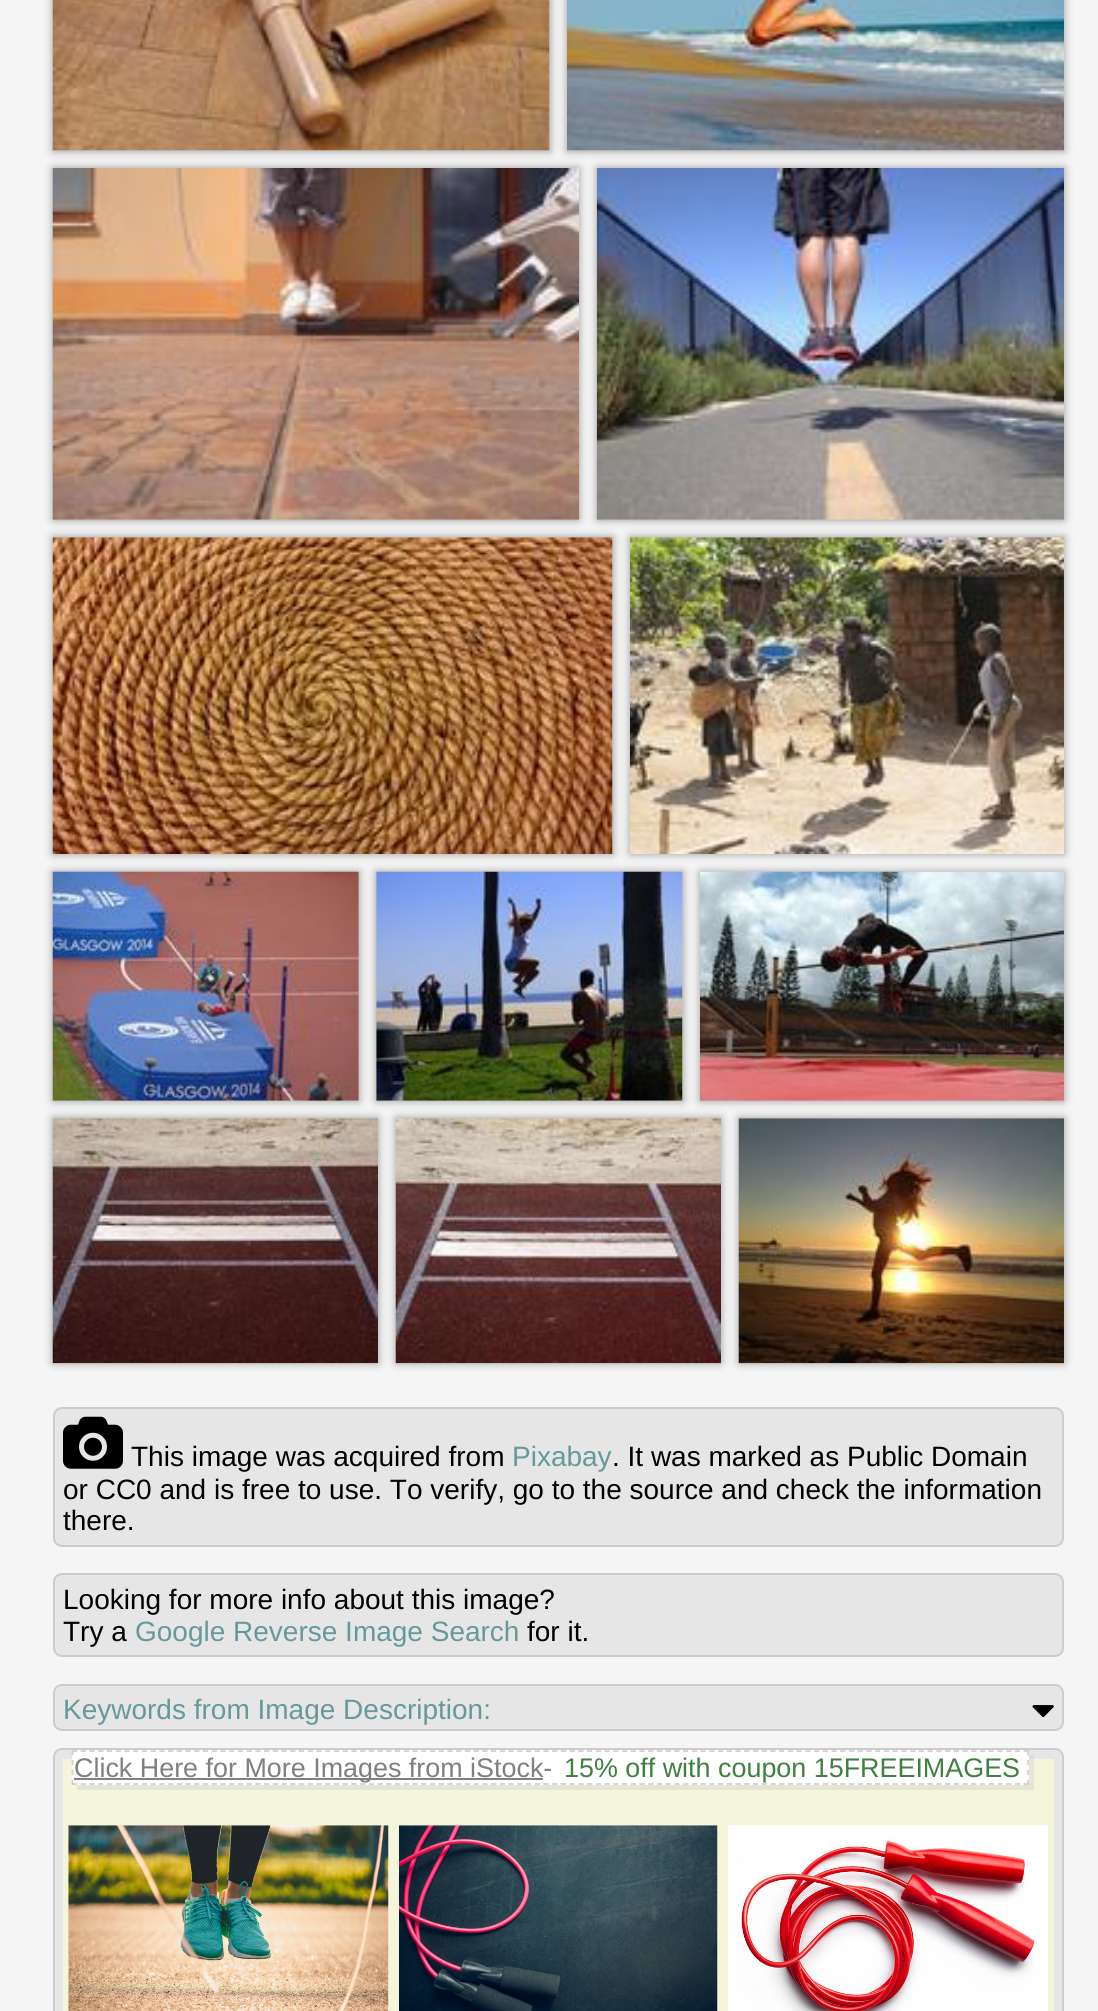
#include <cairo.h>
#include <math.h>
#include <stddef.h>

typedef struct { double x, y; const char *s; } line_t;

static void ink(cairo_t *ctx, unsigned color) {
    cairo_set_source_rgb(ctx, (color >> 16) / 255.0, (color >> 8 & 255) / 255.0, (color & 255) / 255.0);
}

static void round_path(cairo_t *ctx, double x, double y, double w, double h, double r) {
    cairo_new_sub_path(ctx);
    cairo_arc(ctx, x + w - r, y + h - r, r, 0, M_PI / 2);
    cairo_arc(ctx, x + r, y + h - r, r, M_PI / 2, M_PI);
    cairo_arc(ctx, x + r, y + r, r, M_PI, 1.5 * M_PI);
    cairo_arc(ctx, x + w - r, y + r, r, 1.5 * M_PI, 2 * M_PI);
    cairo_close_path(ctx);
}

static void blur_box(cairo_t *ctx, double x, double y, double w, double h, double r, double blur, double alpha) {
    cairo_push_group_with_content(ctx, CAIRO_CONTENT_ALPHA);
    cairo_set_operator(ctx, CAIRO_OPERATOR_SOURCE);
    for (int i = 15; i >= -15 && fmin(w, h) + blur * i / 3 > 0; i -= 2) {
        double e = blur * i / 6;
        cairo_set_source_rgba(ctx, 0, 0, 0, alpha * erfc((i - 1) / 8.5) / 2);
        round_path(ctx, x - e, y - e, w + 2 * e, h + 2 * e, fmax(0, fmin(r + e + blur * .6, fmin(w, h) / 2 + e)));
        cairo_fill(ctx);
    }
    cairo_pattern_t *soft = cairo_pop_group(ctx);
    cairo_mask(ctx, soft);
    cairo_pattern_destroy(soft);
}

static void paste(cairo_t *ctx, const char *path, double x, double y, double w, double h) {
    cairo_surface_t *image = cairo_image_surface_create_from_png(path);
    cairo_save(ctx);
    cairo_set_source_surface(ctx, image, x, y);
    cairo_rectangle(ctx, x, y, w, h);
    cairo_fill(ctx);
    cairo_restore(ctx);
    cairo_surface_destroy(image);
}

int main(void) {
    cairo_surface_t *surface = cairo_image_surface_create(CAIRO_FORMAT_RGB24, 1098, 2011);
    cairo_t *ctx = cairo_create(surface);
    cairo_font_options_t *options = cairo_font_options_create();
    cairo_font_options_set_hint_metrics(options, CAIRO_HINT_METRICS_OFF);
    cairo_font_options_set_hint_style(options, CAIRO_HINT_STYLE_NONE);
    cairo_set_font_options(ctx, options);
    cairo_set_miter_limit(ctx, 4);
    ink(ctx, 0xF5F5F5);
    cairo_paint(ctx);
    ink(ctx, 0x999999);
    blur_box(ctx, 53, -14, 497, 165, 0, 4.5, 1);
    paste(ctx, "media/1.png", 52, 0, 498, 151);
    blur_box(ctx, 567, -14, 497, 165, 0, 4.5, 1);
    paste(ctx, "media/2.png", 567, 0, 497, 151);
    blur_box(ctx, 53, 168, 526, 352, 0, 4.5, 1);
    paste(ctx, "media/3.png", 52, 168, 528, 352);
    blur_box(ctx, 597, 168, 467, 352, 0, 4.5, 1);
    paste(ctx, "media/4.png", 596, 168, 468, 352);
    blur_box(ctx, 53, 537, 560, 317, 0, 4.5, 1);
    paste(ctx, "media/5.png", 52, 537, 561, 317);
    blur_box(ctx, 630, 537, 434, 317, 0, 4.5, 1);
    paste(ctx, "media/6.png", 630, 537, 434, 317);
    blur_box(ctx, 53, 872, 306, 229, 0, 4.5, 1);
    paste(ctx, "media/7.png", 52, 871, 307, 230);
    blur_box(ctx, 376, 872, 307, 229, 0, 4.5, 1);
    paste(ctx, "media/8.png", 376, 871, 307, 230);
    blur_box(ctx, 700, 872, 364, 229, 0, 4.5, 1);
    paste(ctx, "media/9.png", 700, 871, 364, 230);
    blur_box(ctx, 53, 1118, 325, 245, 0, 4.5, 1);
    paste(ctx, "media/10.png", 52, 1118, 326, 246);
    blur_box(ctx, 396, 1118, 325, 245, 0, 4.5, 1);
    paste(ctx, "media/11.png", 395, 1118, 326, 246);
    blur_box(ctx, 739, 1118, 325, 245, 0, 4.5, 1);
    paste(ctx, "media/12.png", 738, 1118, 326, 246);
    ink(ctx, 0xE6E6E6);
    round_path(ctx, 54, 1408, 1009, 138, 8);
    cairo_fill_preserve(ctx);
    ink(ctx, 0xCCCCCC);
    cairo_stroke(ctx);
    paste(ctx, "media/13.png", 63, 1416, 60, 53);
    cairo_select_font_face(ctx, "Liberation Sans", CAIRO_FONT_SLANT_NORMAL, CAIRO_FONT_WEIGHT_NORMAL);
    cairo_set_font_size(ctx, 28);
    ink(ctx, 0x000000);
    cairo_move_to(ctx, 131, 1466);
    cairo_show_text(ctx, "This image was acquired from");
    ink(ctx, 0x669999);
    cairo_move_to(ctx, 512, 1466);
    cairo_show_text(ctx, "Pixabay");
    ink(ctx, 0x000000);
    {
        static const line_t items[] = {
            {612, 1466, ". It was marked as Public Domain"},
            {63, 1499, "or CC0 and is free to use. To verify, go to the source and check the information"},
            {63, 1530, "there."},
        };
        for (size_t i = 0; i < sizeof items / sizeof *items; i++) {
            cairo_move_to(ctx, items[i].x, items[i].y);
            cairo_show_text(ctx, items[i].s);
        }
    }
    ink(ctx, 0xE6E6E6);
    round_path(ctx, 54, 1574, 1009, 82, 8);
    cairo_fill_preserve(ctx);
    ink(ctx, 0xCCCCCC);
    cairo_stroke(ctx);
    ink(ctx, 0x000000);
    cairo_move_to(ctx, 63, 1609);
    cairo_show_text(ctx, "Looking for more info about this image?");
    cairo_move_to(ctx, 63, 1641);
    cairo_show_text(ctx, "Try a");
    ink(ctx, 0x669999);
    cairo_move_to(ctx, 135, 1641);
    cairo_show_text(ctx, "Google Reverse Image Search");
    ink(ctx, 0x000000);
    cairo_move_to(ctx, 527, 1641);
    cairo_show_text(ctx, "for it.");
    ink(ctx, 0xE6E6E6);
    round_path(ctx, 54, 1685, 1009, 45, 8);
    cairo_fill_preserve(ctx);
    ink(ctx, 0xCCCCCC);
    cairo_stroke(ctx);
    ink(ctx, 0x669999);
    cairo_move_to(ctx, 63, 1719);
    cairo_show_text(ctx, "Keywords from Image Description:");
    paste(ctx, "media/14.png", 1032, 1705, 22, 13);
    ink(ctx, 0xE6E6E6);
    round_path(ctx, 54, 1749, 1009, 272, 8);
    cairo_fill_preserve(ctx);
    ink(ctx, 0xCCCCCC);
    cairo_stroke(ctx);
    ink(ctx, 0xF5F5DC);
    cairo_rectangle(ctx, 63, 1759, 991, 252);
    cairo_fill(ctx);
    cairo_set_source_rgba(ctx, 0.8, 0.8, 0.8, 0.38);
    cairo_new_path(ctx);
    cairo_move_to(ctx, 77, 1785);
    cairo_line_to(ctx, 77, 1790);
    cairo_line_to(ctx, 1034, 1790);
    cairo_line_to(ctx, 1034, 1755);
    cairo_line_to(ctx, 1029, 1755);
    cairo_line_to(ctx, 1029, 1785);
    cairo_close_path(ctx);
    cairo_fill(ctx);
    ink(ctx, 0xFFFFFF);
    cairo_rectangle(ctx, 72, 1750, 957, 35);
    cairo_fill(ctx);
    cairo_new_path(ctx);
    cairo_move_to(ctx, 72, 1751);
    cairo_line_to(ctx, 1029, 1751);
    ink(ctx, 0xD0D0D0);
    cairo_set_line_width(ctx, 1.8);
    cairo_set_dash(ctx, (double[]){5.25, 3.48}, 2, 0);
    cairo_stroke(ctx);
    cairo_new_path(ctx);
    cairo_move_to(ctx, 1028, 1750);
    cairo_line_to(ctx, 1028, 1785);
    cairo_set_dash(ctx, (double[]){5.25, 4.67}, 2, 0);
    cairo_stroke(ctx);
    cairo_new_path(ctx);
    cairo_move_to(ctx, 72, 1784);
    cairo_line_to(ctx, 1029, 1784);
    cairo_set_dash(ctx, (double[]){5.25, 3.48}, 2, 0);
    cairo_stroke(ctx);
    cairo_new_path(ctx);
    cairo_move_to(ctx, 72.5, 1750);
    cairo_line_to(ctx, 72.5, 1785);
    cairo_set_dash(ctx, (double[]){5.25, 4.67}, 2, 0);
    cairo_stroke(ctx);
    ink(ctx, 0x808080);
    cairo_rectangle(ctx, 74, 1778, 469, 2);
    cairo_fill(ctx);
    cairo_set_font_size(ctx, 26.9);
    cairo_move_to(ctx, 74, 1777);
    cairo_show_text(ctx, "Click Here for More Images from iStock-");
    ink(ctx, 0x408040);
    cairo_move_to(ctx, 564, 1777);
    cairo_show_text(ctx, "15% off with coupon 15FREEIMAGES");
    paste(ctx, "media/15.png", 68, 1825, 321, 186);
    paste(ctx, "media/16.png", 399, 1825, 319, 186);
    paste(ctx, "media/17.png", 728, 1825, 320, 186);
    cairo_surface_write_to_png(surface, "image.png");
    cairo_font_options_destroy(options);
    cairo_destroy(ctx);
    cairo_surface_destroy(surface);
    return 0;
}
